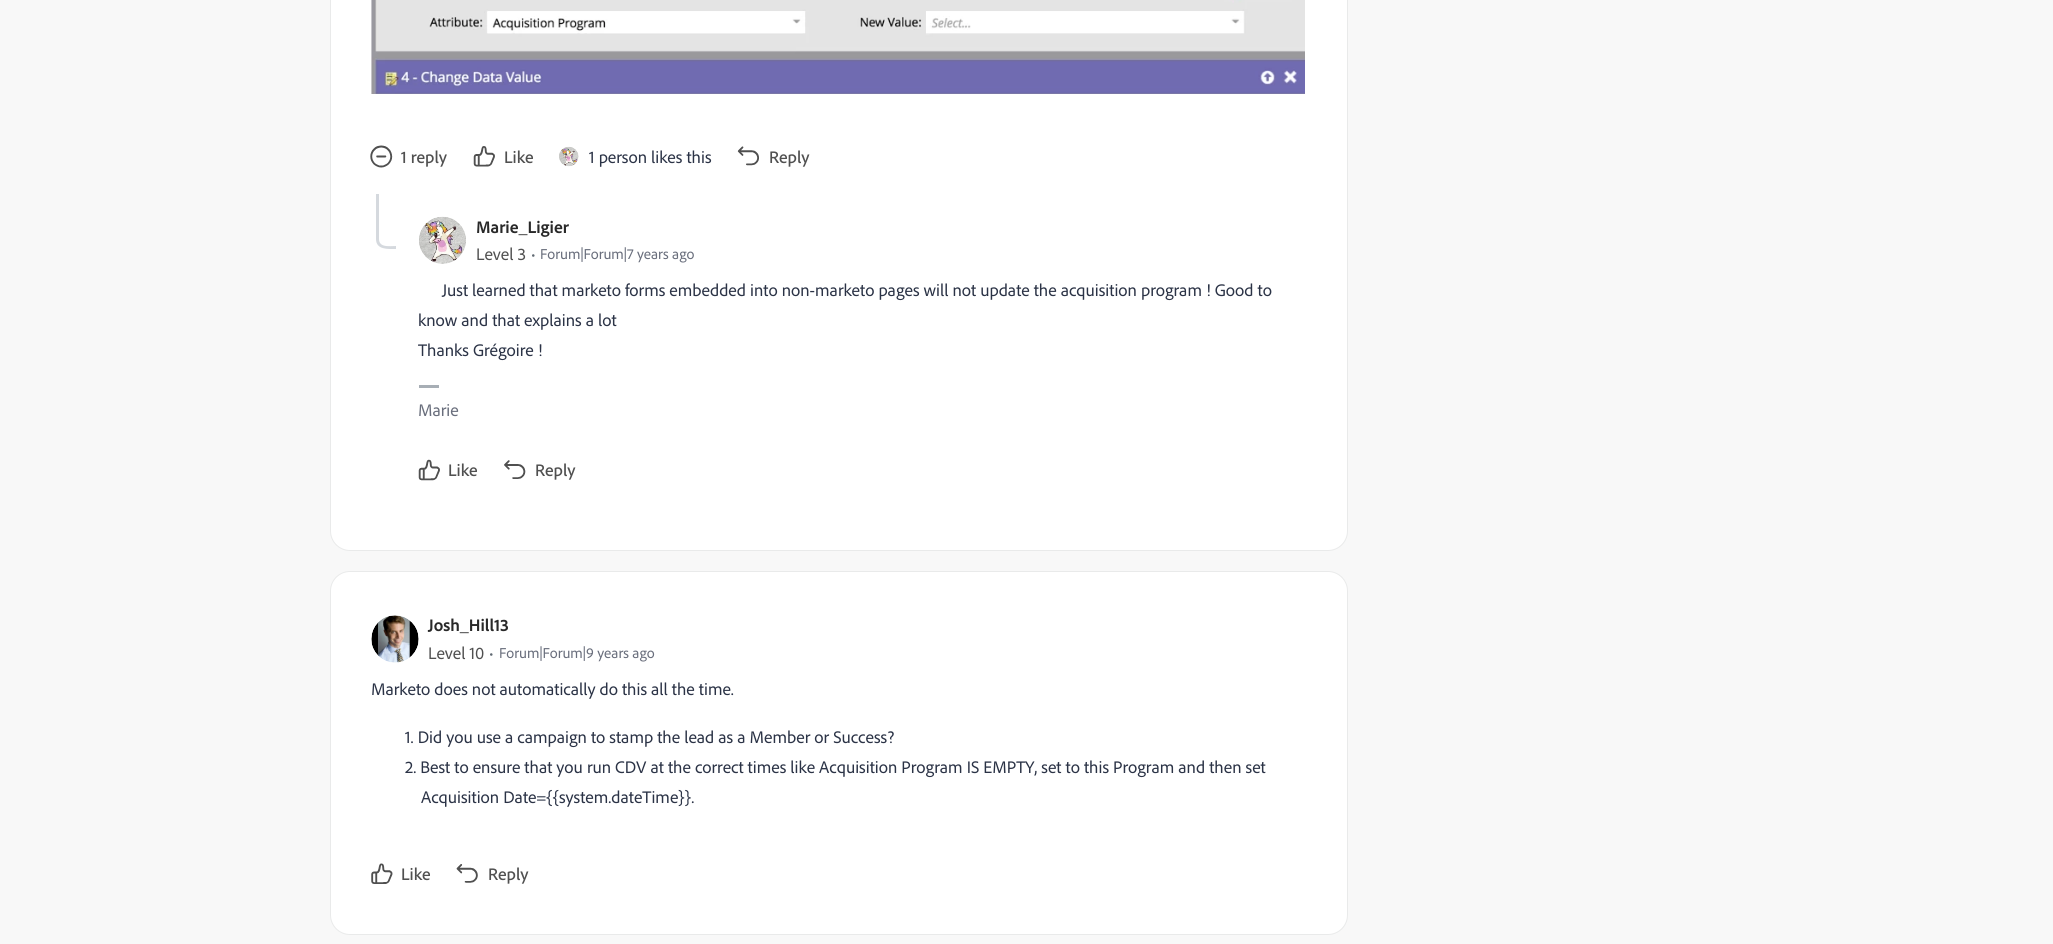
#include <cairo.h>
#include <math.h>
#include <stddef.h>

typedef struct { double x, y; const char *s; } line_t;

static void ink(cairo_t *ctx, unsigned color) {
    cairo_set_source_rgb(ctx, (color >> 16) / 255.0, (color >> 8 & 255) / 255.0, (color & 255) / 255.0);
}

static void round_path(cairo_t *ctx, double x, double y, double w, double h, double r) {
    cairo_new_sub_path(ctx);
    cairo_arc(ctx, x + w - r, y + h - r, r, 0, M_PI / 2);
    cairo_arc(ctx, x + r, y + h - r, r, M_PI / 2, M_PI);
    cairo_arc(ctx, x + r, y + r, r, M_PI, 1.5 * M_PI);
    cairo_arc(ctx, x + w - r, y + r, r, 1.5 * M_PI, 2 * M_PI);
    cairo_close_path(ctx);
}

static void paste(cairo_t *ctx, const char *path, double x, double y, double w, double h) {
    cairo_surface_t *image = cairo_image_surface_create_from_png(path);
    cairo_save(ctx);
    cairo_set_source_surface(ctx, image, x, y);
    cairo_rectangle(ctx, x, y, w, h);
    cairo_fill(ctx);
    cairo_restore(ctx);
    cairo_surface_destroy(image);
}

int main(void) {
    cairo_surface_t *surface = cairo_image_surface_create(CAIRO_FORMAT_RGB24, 2053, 944);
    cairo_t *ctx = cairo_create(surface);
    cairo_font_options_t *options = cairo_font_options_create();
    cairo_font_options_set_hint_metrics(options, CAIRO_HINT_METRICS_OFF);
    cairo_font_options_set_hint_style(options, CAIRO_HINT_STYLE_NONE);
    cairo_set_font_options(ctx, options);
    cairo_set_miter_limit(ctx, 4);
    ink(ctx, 0xF8F8F8);
    cairo_paint(ctx);
    ink(ctx, 0xFFFFFF);
    round_path(ctx, 330.5, -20.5, 1017, 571, 19.5);
    cairo_fill_preserve(ctx);
    ink(ctx, 0xE9EAEA);
    cairo_set_line_width(ctx, 1);
    cairo_stroke(ctx);
    paste(ctx, "media/1.png", 371, 0, 934, 94);
    paste(ctx, "media/2.png", 370, 145, 23, 23);
    cairo_select_font_face(ctx, "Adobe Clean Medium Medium", CAIRO_FONT_SLANT_NORMAL, CAIRO_FONT_WEIGHT_NORMAL);
    cairo_set_font_size(ctx, 17.5);
    ink(ctx, 0x505050);
    cairo_move_to(ctx, 401, 163);
    cairo_show_text(ctx, "1 reply");
    paste(ctx, "media/3.png", 473, 146, 22, 21);
    cairo_move_to(ctx, 504, 163);
    cairo_show_text(ctx, "Like");
    paste(ctx, "media/4.png", 559, 146, 20, 21);
    cairo_select_font_face(ctx, "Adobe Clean", CAIRO_FONT_SLANT_NORMAL, CAIRO_FONT_WEIGHT_NORMAL);
    ink(ctx, 0x2B3346);
    cairo_move_to(ctx, 589, 163);
    cairo_show_text(ctx, "1 person likes this");
    paste(ctx, "media/5.png", 737, 146, 22, 20);
    cairo_select_font_face(ctx, "Adobe Clean Medium Medium", CAIRO_FONT_SLANT_NORMAL, CAIRO_FONT_WEIGHT_NORMAL);
    ink(ctx, 0x505050);
    cairo_move_to(ctx, 769, 163);
    cairo_show_text(ctx, "Reply");
    ink(ctx, 0xD5D9DE);
    cairo_set_fill_rule(ctx, CAIRO_FILL_RULE_EVEN_ODD);
    cairo_new_path(ctx);
    cairo_move_to(ctx, 376, 194);
    cairo_line_to(ctx, 396, 194);
    cairo_line_to(ctx, 396, 249);
    cairo_curve_to(ctx, 388, 249, 376, 250, 376, 239);
    cairo_close_path(ctx);
    cairo_move_to(ctx, 379, 194);
    cairo_line_to(ctx, 396, 194);
    cairo_line_to(ctx, 396, 246);
    cairo_curve_to(ctx, 390, 246, 379, 248, 379, 239);
    cairo_close_path(ctx);
    cairo_fill(ctx);
    paste(ctx, "media/6.png", 419, 216, 47, 48);
    cairo_select_font_face(ctx, "Adobe Clean", CAIRO_FONT_SLANT_NORMAL, CAIRO_FONT_WEIGHT_BOLD);
    ink(ctx, 0x292929);
    cairo_move_to(ctx, 476, 233);
    cairo_show_text(ctx, "Marie_Ligier");
    cairo_select_font_face(ctx, "Adobe Clean", CAIRO_FONT_SLANT_NORMAL, CAIRO_FONT_WEIGHT_NORMAL);
    ink(ctx, 0x505050);
    cairo_move_to(ctx, 476, 260);
    cairo_show_text(ctx, "Level 3");
    cairo_select_font_face(ctx, "Adobe Clean", CAIRO_FONT_SLANT_NORMAL, CAIRO_FONT_WEIGHT_BOLD);
    ink(ctx, 0x616A73);
    cairo_move_to(ctx, 531, 260);
    cairo_show_text(ctx, "·");
    cairo_select_font_face(ctx, "Adobe Clean", CAIRO_FONT_SLANT_NORMAL, CAIRO_FONT_WEIGHT_NORMAL);
    cairo_set_font_size(ctx, 15);
    ink(ctx, 0x696E7C);
    cairo_move_to(ctx, 540, 259);
    cairo_show_text(ctx, "Forum|Forum|7 years ago");
    cairo_set_font_size(ctx, 17.5);
    ink(ctx, 0x2B3346);
    {
        static const line_t items[] = {
            {442, 296, "Just learned that marketo forms embedded into non-marketo pages will not update the acquisition program ! Good to"},
            {418, 326, "know and that explains a lot"},
            {418, 356, "Thanks Grégoire !"},
        };
        for (size_t i = 0; i < sizeof items / sizeof *items; i++) {
            cairo_move_to(ctx, items[i].x, items[i].y);
            cairo_show_text(ctx, items[i].s);
        }
    }
    ink(ctx, 0xA7AEB5);
    cairo_rectangle(ctx, 419, 385, 20, 3);
    cairo_fill(ctx);
    ink(ctx, 0x696E7C);
    cairo_move_to(ctx, 418, 416);
    cairo_show_text(ctx, "Marie");
    paste(ctx, "media/7.png", 418, 459, 22, 22);
    cairo_select_font_face(ctx, "Adobe Clean Medium Medium", CAIRO_FONT_SLANT_NORMAL, CAIRO_FONT_WEIGHT_NORMAL);
    ink(ctx, 0x505050);
    cairo_move_to(ctx, 448, 476);
    cairo_show_text(ctx, "Like");
    paste(ctx, "media/8.png", 504, 460, 22, 19);
    cairo_move_to(ctx, 535, 476);
    cairo_show_text(ctx, "Reply");
    ink(ctx, 0xFFFFFF);
    round_path(ctx, 330.5, 571.5, 1017, 363, 19.5);
    cairo_fill_preserve(ctx);
    ink(ctx, 0xE9EAEA);
    cairo_stroke(ctx);
    paste(ctx, "media/9.png", 371, 615, 48, 48);
    cairo_select_font_face(ctx, "Adobe Clean", CAIRO_FONT_SLANT_NORMAL, CAIRO_FONT_WEIGHT_BOLD);
    ink(ctx, 0x292929);
    cairo_move_to(ctx, 428, 631);
    cairo_show_text(ctx, "Josh_Hill13");
    cairo_select_font_face(ctx, "Adobe Clean", CAIRO_FONT_SLANT_NORMAL, CAIRO_FONT_WEIGHT_NORMAL);
    ink(ctx, 0x505050);
    cairo_move_to(ctx, 428, 659);
    cairo_show_text(ctx, "Level 10");
    cairo_select_font_face(ctx, "Adobe Clean", CAIRO_FONT_SLANT_NORMAL, CAIRO_FONT_WEIGHT_BOLD);
    ink(ctx, 0x616A73);
    cairo_move_to(ctx, 489, 659);
    cairo_show_text(ctx, "·");
    cairo_select_font_face(ctx, "Adobe Clean", CAIRO_FONT_SLANT_NORMAL, CAIRO_FONT_WEIGHT_NORMAL);
    cairo_set_font_size(ctx, 15);
    ink(ctx, 0x696E7C);
    cairo_move_to(ctx, 499, 658);
    cairo_show_text(ctx, "Forum|Forum|9 years ago");
    cairo_set_font_size(ctx, 17.5);
    ink(ctx, 0x2B3346);
    {
        static const line_t items[] = {
            {371, 695, "Marketo does not automatically do this all the time."},
            {405, 743, "1. Did you use a campaign to stamp the lead as a Member or Success?"},
            {405, 773, "2. Best to ensure that you run CDV at the correct times like Acquisition Program IS EMPTY, set to this Program and then set"},
            {421, 803, "Acquisition Date={{system.dateTime}}."},
        };
        for (size_t i = 0; i < sizeof items / sizeof *items; i++) {
            cairo_move_to(ctx, items[i].x, items[i].y);
            cairo_show_text(ctx, items[i].s);
        }
    }
    paste(ctx, "media/10.png", 371, 863, 22, 21);
    cairo_select_font_face(ctx, "Adobe Clean Medium Medium", CAIRO_FONT_SLANT_NORMAL, CAIRO_FONT_WEIGHT_NORMAL);
    ink(ctx, 0x505050);
    cairo_move_to(ctx, 401, 880);
    cairo_show_text(ctx, "Like");
    paste(ctx, "media/11.png", 456, 864, 22, 19);
    cairo_move_to(ctx, 488, 880);
    cairo_show_text(ctx, "Reply");
    cairo_surface_write_to_png(surface, "image.png");
    cairo_font_options_destroy(options);
    cairo_destroy(ctx);
    cairo_surface_destroy(surface);
    return 0;
}
